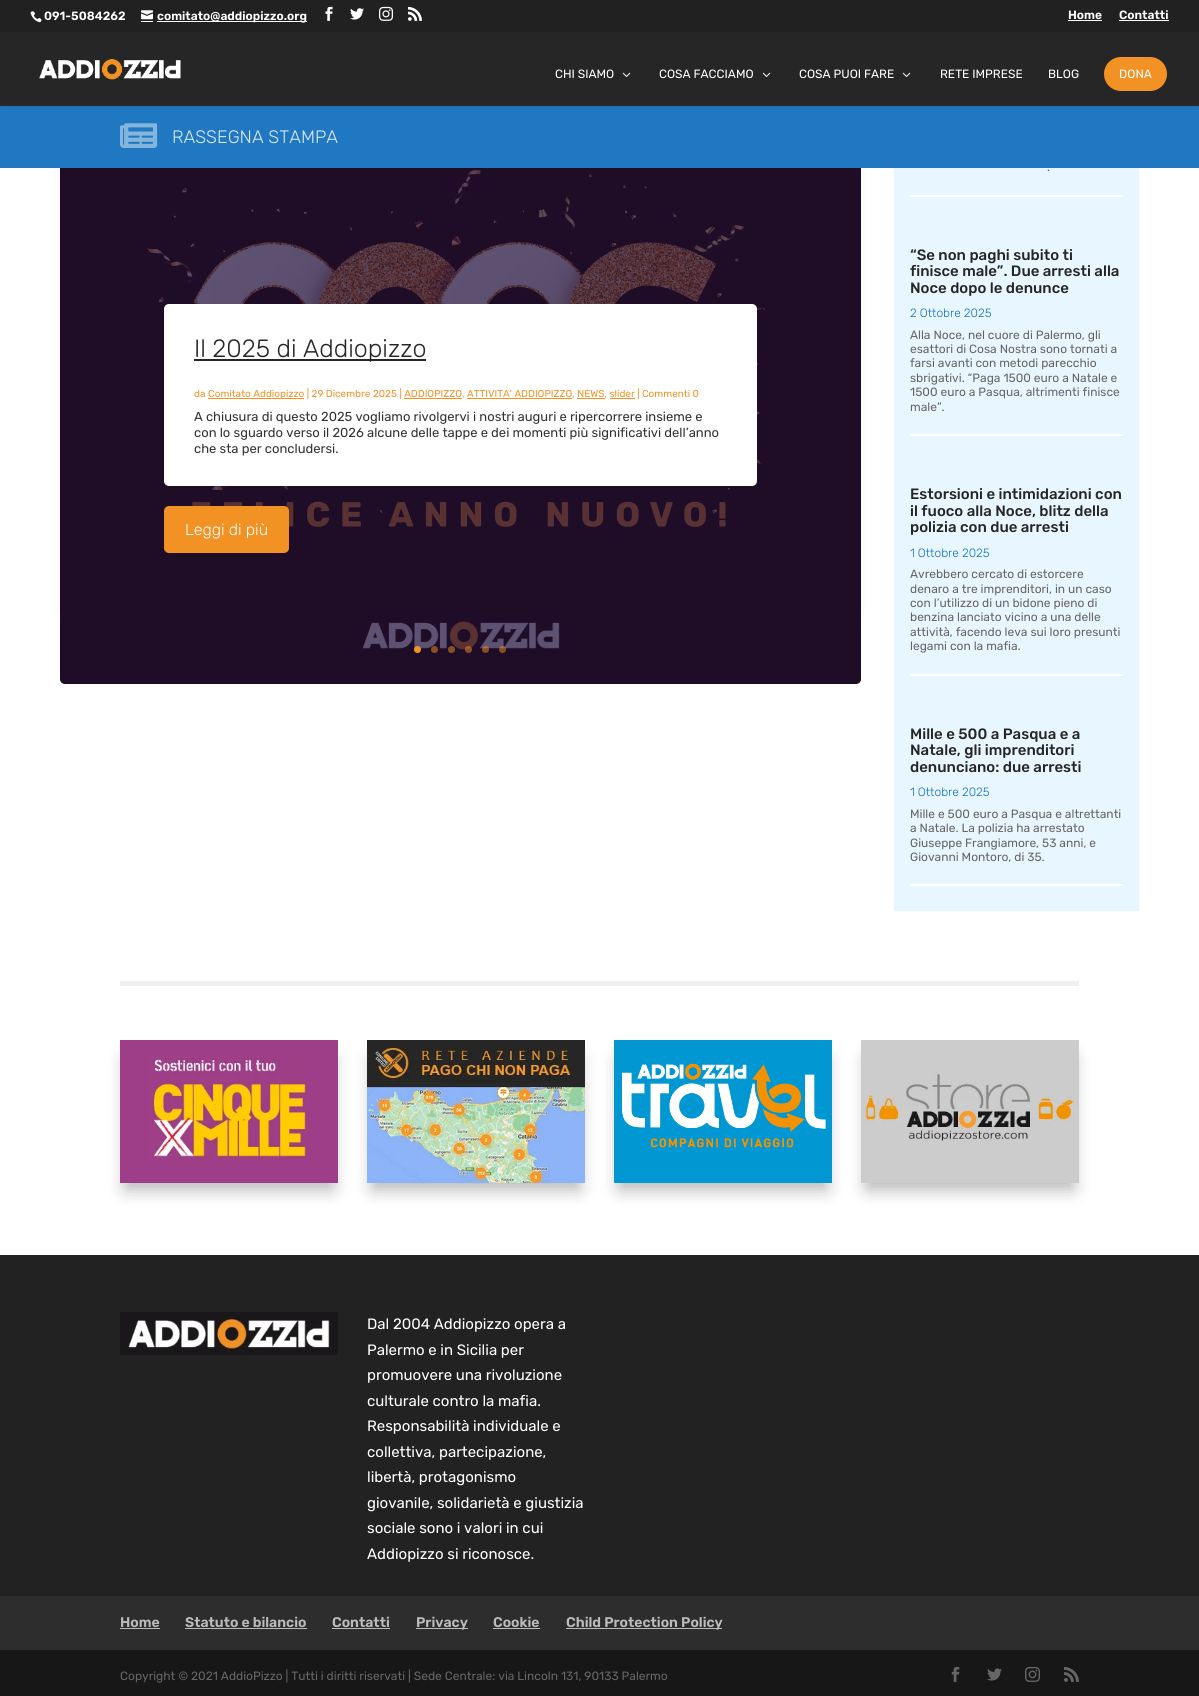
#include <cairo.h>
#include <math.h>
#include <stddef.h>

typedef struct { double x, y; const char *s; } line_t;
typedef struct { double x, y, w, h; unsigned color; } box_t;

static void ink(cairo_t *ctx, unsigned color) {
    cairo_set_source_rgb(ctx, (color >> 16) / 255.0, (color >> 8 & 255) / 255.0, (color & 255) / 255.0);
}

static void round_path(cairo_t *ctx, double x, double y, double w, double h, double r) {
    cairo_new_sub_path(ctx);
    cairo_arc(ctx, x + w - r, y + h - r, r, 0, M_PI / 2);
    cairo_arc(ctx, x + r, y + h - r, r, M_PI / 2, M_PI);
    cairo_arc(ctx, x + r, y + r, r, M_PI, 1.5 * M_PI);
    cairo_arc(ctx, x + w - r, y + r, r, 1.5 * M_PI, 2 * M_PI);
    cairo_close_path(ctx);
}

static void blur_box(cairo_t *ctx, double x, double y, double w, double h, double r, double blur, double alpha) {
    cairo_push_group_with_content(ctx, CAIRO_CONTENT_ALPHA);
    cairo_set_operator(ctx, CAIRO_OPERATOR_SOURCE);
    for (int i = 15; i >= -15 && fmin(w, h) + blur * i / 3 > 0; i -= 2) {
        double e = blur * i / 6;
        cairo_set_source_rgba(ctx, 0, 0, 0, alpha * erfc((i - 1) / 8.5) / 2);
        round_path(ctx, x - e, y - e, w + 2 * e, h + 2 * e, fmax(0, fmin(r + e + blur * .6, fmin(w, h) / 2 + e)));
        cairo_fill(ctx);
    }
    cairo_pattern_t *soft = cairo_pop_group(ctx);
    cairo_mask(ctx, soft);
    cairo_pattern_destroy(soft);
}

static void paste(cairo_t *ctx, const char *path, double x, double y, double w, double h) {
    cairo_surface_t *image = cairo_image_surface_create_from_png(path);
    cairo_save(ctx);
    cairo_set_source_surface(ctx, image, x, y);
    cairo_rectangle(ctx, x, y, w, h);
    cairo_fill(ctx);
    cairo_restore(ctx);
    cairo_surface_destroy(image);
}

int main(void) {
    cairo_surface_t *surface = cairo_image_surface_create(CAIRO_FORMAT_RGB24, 1199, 1696);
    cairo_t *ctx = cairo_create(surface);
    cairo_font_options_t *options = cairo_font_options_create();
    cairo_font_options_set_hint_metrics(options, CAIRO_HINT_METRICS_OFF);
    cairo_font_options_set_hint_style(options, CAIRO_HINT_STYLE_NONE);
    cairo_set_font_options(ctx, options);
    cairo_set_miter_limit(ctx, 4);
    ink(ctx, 0xFFFFFF);
    cairo_paint(ctx);
    ink(ctx, 0x000000);
    blur_box(ctx, 72, -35, 777, 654, 8, 9, 0.3);
    ink(ctx, 0xF7992E);
    round_path(ctx, 60, 139, 801, 545, 5);
    cairo_fill(ctx);
    paste(ctx, "media/10.png", 60, 168, 801, 516);
    cairo_set_source_rgba(ctx, 0.102, 0.039, 0.22, 0.7);
    round_path(ctx, 60, 139, 801, 545, 5);
    cairo_fill(ctx);
    ink(ctx, 0x1F78C1);
    cairo_rectangle(ctx, 0, 106, 1199, 62);
    cairo_fill(ctx);
    ink(ctx, 0x000000);
    blur_box(ctx, 0, 32, 1199, 74, 0, 3.5, 0.1);
    ink(ctx, 0x212121);
    cairo_rectangle(ctx, 0, 0, 1199, 32);
    cairo_fill(ctx);
    paste(ctx, "media/1.png", 30, 11, 12, 12);
    cairo_select_font_face(ctx, "Rubik SemiBold", CAIRO_FONT_SLANT_NORMAL, CAIRO_FONT_WEIGHT_NORMAL);
    cairo_set_font_size(ctx, 12);
    ink(ctx, 0xFFFFFF);
    cairo_move_to(ctx, 44, 20);
    cairo_show_text(ctx, "091-5084262");
    paste(ctx, "media/2.png", 141, 10, 12, 10);
    cairo_rectangle(ctx, 157, 21, 150, 1);
    cairo_fill(ctx);
    cairo_move_to(ctx, 157, 20);
    cairo_show_text(ctx, "comitato@addiopizzo.org");
    cairo_rectangle(ctx, 141, 21, 12, 1);
    cairo_fill(ctx);
    paste(ctx, "media/3.png", 325, 6, 8, 15);
    paste(ctx, "media/4.png", 350, 8, 14, 12);
    paste(ctx, "media/5.png", 379, 6, 14, 15);
    paste(ctx, "media/6.png", 408, 6, 14, 15);
    cairo_move_to(ctx, 1068, 19);
    cairo_show_text(ctx, "Home");
    cairo_rectangle(ctx, 1068, 20, 34, 1);
    cairo_fill(ctx);
    cairo_move_to(ctx, 1119, 19);
    cairo_show_text(ctx, "Contatti");
    cairo_rectangle(ctx, 1119, 20, 50, 1);
    cairo_fill(ctx);
    ink(ctx, 0x262626);
    cairo_rectangle(ctx, 0, 32, 1199, 74);
    cairo_fill(ctx);
    paste(ctx, "media/7.png", 39, 58, 142, 22);
    cairo_select_font_face(ctx, "Rubik Light", CAIRO_FONT_SLANT_NORMAL, CAIRO_FONT_WEIGHT_NORMAL);
    ink(ctx, 0xFFFFFF);
    cairo_move_to(ctx, 555, 78);
    cairo_show_text(ctx, "CHI SIAMO");
    paste(ctx, "media/8.png", 622, 72, 9, 5);
    cairo_move_to(ctx, 659, 78);
    cairo_show_text(ctx, "COSA FACCIAMO");
    paste(ctx, "media/8.png", 762, 72, 9, 5);
    cairo_move_to(ctx, 799, 78);
    cairo_show_text(ctx, "COSA PUOI FARE");
    paste(ctx, "media/8.png", 902, 72, 9, 5);
    cairo_move_to(ctx, 940, 78);
    cairo_show_text(ctx, "RETE IMPRESE");
    cairo_move_to(ctx, 1048, 78);
    cairo_show_text(ctx, "BLOG");
    ink(ctx, 0xF29224);
    round_path(ctx, 1104, 57, 63, 34, 17);
    cairo_fill(ctx);
    ink(ctx, 0xFFFFFF);
    cairo_move_to(ctx, 1119, 78);
    cairo_show_text(ctx, "DONA");
    paste(ctx, "media/9.png", 120, 123, 38, 25);
    cairo_select_font_face(ctx, "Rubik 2 Light", CAIRO_FONT_SLANT_NORMAL, CAIRO_FONT_WEIGHT_NORMAL);
    cairo_set_font_size(ctx, 18);
    ink(ctx, 0xDBE9F5);
    cairo_move_to(ctx, 172, 143);
    cairo_show_text(ctx, "RASSEGNA STAMPA");
    ink(ctx, 0xFFFFFF);
    round_path(ctx, 164, 304, 593, 182, 5);
    cairo_fill(ctx);
    ink(ctx, 0x262626);
    cairo_rectangle(ctx, 194, 359, 232, 2);
    cairo_fill(ctx);
    cairo_set_font_size(ctx, 25);
    cairo_move_to(ctx, 194, 357);
    cairo_show_text(ctx, "Il 2025 di Addiopizzo");
    cairo_select_font_face(ctx, "Rubik Light", CAIRO_FONT_SLANT_NORMAL, CAIRO_FONT_WEIGHT_NORMAL);
    cairo_set_font_size(ctx, 10);
    ink(ctx, 0xF29224);
    cairo_move_to(ctx, 194, 397);
    cairo_show_text(ctx, "da");
    cairo_rectangle(ctx, 208, 398, 96, 1);
    cairo_fill(ctx);
    cairo_move_to(ctx, 208, 397);
    cairo_show_text(ctx, "Comitato Addiopizzo | 29 Dicembre 2025 | ADDIOPIZZO, ATTIVITA' ADDIOPIZZO, NEWS, slider | Commenti 0");
    {
        static const box_t items[] = {
            {404, 398, 58, 1, 0xF29224},
            {467, 398, 105, 1, 0xF29224},
            {577, 398, 28, 1, 0xF29224},
            {610, 398, 25, 1, 0xF29224},
        };
        for (size_t i = 0; i < sizeof items / sizeof *items; i++) {
            ink(ctx, items[i].color);
            cairo_rectangle(ctx, items[i].x, items[i].y, items[i].w, items[i].h);
            cairo_fill(ctx);
        }
    }
    cairo_set_font_size(ctx, 13);
    ink(ctx, 0x333333);
    {
        static const line_t items[] = {
            {194, 421, "A chiusura di questo 2025 vogliamo rivolgervi i nostri auguri e ripercorrere insieme e"},
            {194, 437, "con lo sguardo verso il 2026 alcune delle tappe e dei momenti più significativi dell’anno"},
            {194, 453, "che sta per concludersi."},
        };
        for (size_t i = 0; i < sizeof items / sizeof *items; i++) {
            cairo_move_to(ctx, items[i].x, items[i].y);
            cairo_show_text(ctx, items[i].s);
        }
    }
    ink(ctx, 0xF29224);
    round_path(ctx, 164, 506, 125, 47, 5);
    cairo_fill(ctx);
    cairo_select_font_face(ctx, "Rubik 2 Light", CAIRO_FONT_SLANT_NORMAL, CAIRO_FONT_WEIGHT_NORMAL);
    cairo_set_font_size(ctx, 16);
    ink(ctx, 0xFFFFFF);
    cairo_move_to(ctx, 185, 535);
    cairo_show_text(ctx, "Leggi di più");
    ink(ctx, 0xF29224);
    cairo_new_path(ctx);
    cairo_arc(ctx, 417.5, 649.5, 3.5, 0, 2 * M_PI);
    cairo_fill(ctx);
    ink(ctx, 0x885026);
    cairo_arc(ctx, 434.5, 649.5, 3.5, 0, 2 * M_PI);
    cairo_fill(ctx);
    cairo_arc(ctx, 451.5, 649.5, 3.5, 0, 2 * M_PI);
    cairo_fill(ctx);
    cairo_set_source_rgba(ctx, 0.949, 0.573, 0.141, 0.5);
    cairo_arc(ctx, 468.5, 649.5, 3.5, 0, 2 * M_PI);
    cairo_fill(ctx);
    cairo_arc(ctx, 485.5, 649.5, 3.5, 0, 2 * M_PI);
    cairo_fill(ctx);
    cairo_arc(ctx, 502.5, 649.5, 3.5, 0, 2 * M_PI);
    cairo_fill(ctx);
    ink(ctx, 0xE8F6FF);
    cairo_rectangle(ctx, 894, 168, 245, 743);
    cairo_fill(ctx);
    ink(ctx, 0xFFFFFF);
    cairo_rectangle(ctx, 910, 195, 213, 2);
    cairo_fill(ctx);
    cairo_select_font_face(ctx, "Rubik Light", CAIRO_FONT_SLANT_NORMAL, CAIRO_FONT_WEIGHT_NORMAL);
    cairo_set_font_size(ctx, 12);
    ink(ctx, 0x666666);
    cairo_move_to(ctx, 1047, 171);
    cairo_show_text(ctx, ".");
    cairo_select_font_face(ctx, "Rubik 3 Light", CAIRO_FONT_SLANT_NORMAL, CAIRO_FONT_WEIGHT_NORMAL);
    cairo_set_font_size(ctx, 15);
    ink(ctx, 0x262626);
    {
        static const line_t items[] = {
            {910, 260, "“Se non paghi subito ti"},
            {910, 276, "finisce male”. Due arresti alla"},
            {910, 293, "Noce dopo le denunce"},
        };
        for (size_t i = 0; i < sizeof items / sizeof *items; i++) {
            cairo_move_to(ctx, items[i].x, items[i].y);
            cairo_show_text(ctx, items[i].s);
        }
    }
    cairo_select_font_face(ctx, "Rubik 2 Light", CAIRO_FONT_SLANT_NORMAL, CAIRO_FONT_WEIGHT_NORMAL);
    cairo_set_font_size(ctx, 12);
    ink(ctx, 0x0C71C3);
    cairo_move_to(ctx, 910, 317);
    cairo_show_text(ctx, "2 Ottobre 2025");
    ink(ctx, 0xFFFFFF);
    cairo_rectangle(ctx, 910, 434, 213, 2);
    cairo_fill(ctx);
    cairo_select_font_face(ctx, "Rubik Light", CAIRO_FONT_SLANT_NORMAL, CAIRO_FONT_WEIGHT_NORMAL);
    ink(ctx, 0x666666);
    {
        static const line_t items[] = {
            {910, 339, "Alla Noce, nel cuore di Palermo, gli"},
            {910, 353, "esattori di Cosa Nostra sono tornati a"},
            {910, 367, "farsi avanti con metodi parecchio"},
            {910, 382, "sbrigativi. “Paga 1500 euro a Natale e"},
            {910, 396, "1500 euro a Pasqua, altrimenti finisce"},
            {910, 411, "male”."},
        };
        for (size_t i = 0; i < sizeof items / sizeof *items; i++) {
            cairo_move_to(ctx, items[i].x, items[i].y);
            cairo_show_text(ctx, items[i].s);
        }
    }
    cairo_select_font_face(ctx, "Rubik 3 Light", CAIRO_FONT_SLANT_NORMAL, CAIRO_FONT_WEIGHT_NORMAL);
    cairo_set_font_size(ctx, 15);
    ink(ctx, 0x262626);
    {
        static const line_t items[] = {
            {910, 499, "Estorsioni e intimidazioni con"},
            {910, 516, "il fuoco alla Noce, blitz della"},
            {910, 532, "polizia con due arresti"},
        };
        for (size_t i = 0; i < sizeof items / sizeof *items; i++) {
            cairo_move_to(ctx, items[i].x, items[i].y);
            cairo_show_text(ctx, items[i].s);
        }
    }
    cairo_select_font_face(ctx, "Rubik 2 Light", CAIRO_FONT_SLANT_NORMAL, CAIRO_FONT_WEIGHT_NORMAL);
    cairo_set_font_size(ctx, 12);
    ink(ctx, 0x0C71C3);
    cairo_move_to(ctx, 910, 557);
    cairo_show_text(ctx, "1 Ottobre 2025");
    ink(ctx, 0xFFFFFF);
    cairo_rectangle(ctx, 910, 674, 213, 2);
    cairo_fill(ctx);
    cairo_select_font_face(ctx, "Rubik Light", CAIRO_FONT_SLANT_NORMAL, CAIRO_FONT_WEIGHT_NORMAL);
    ink(ctx, 0x666666);
    {
        static const line_t items[] = {
            {910, 578, "Avrebbero cercato di estorcere"},
            {910, 593, "denaro a tre imprenditori, in un caso"},
            {910, 607, "con l’utilizzo di un bidone pieno di"},
            {910, 621, "benzina lanciato vicino a una delle"},
            {910, 636, "attività, facendo leva sui loro presunti"},
            {910, 650, "legami con la mafia."},
        };
        for (size_t i = 0; i < sizeof items / sizeof *items; i++) {
            cairo_move_to(ctx, items[i].x, items[i].y);
            cairo_show_text(ctx, items[i].s);
        }
    }
    cairo_select_font_face(ctx, "Rubik 3 Light", CAIRO_FONT_SLANT_NORMAL, CAIRO_FONT_WEIGHT_NORMAL);
    cairo_set_font_size(ctx, 15);
    ink(ctx, 0x262626);
    {
        static const line_t items[] = {
            {910, 739, "Mille e 500 a Pasqua e a"},
            {910, 755, "Natale, gli imprenditori"},
            {910, 772, "denunciano: due arresti"},
        };
        for (size_t i = 0; i < sizeof items / sizeof *items; i++) {
            cairo_move_to(ctx, items[i].x, items[i].y);
            cairo_show_text(ctx, items[i].s);
        }
    }
    cairo_select_font_face(ctx, "Rubik 2 Light", CAIRO_FONT_SLANT_NORMAL, CAIRO_FONT_WEIGHT_NORMAL);
    cairo_set_font_size(ctx, 12);
    ink(ctx, 0x0C71C3);
    cairo_move_to(ctx, 910, 796);
    cairo_show_text(ctx, "1 Ottobre 2025");
    ink(ctx, 0xFFFFFF);
    cairo_rectangle(ctx, 910, 884, 213, 2);
    cairo_fill(ctx);
    cairo_select_font_face(ctx, "Rubik Light", CAIRO_FONT_SLANT_NORMAL, CAIRO_FONT_WEIGHT_NORMAL);
    ink(ctx, 0x666666);
    {
        static const line_t items[] = {
            {910, 818, "Mille e 500 euro a Pasqua e altrettanti"},
            {910, 832, "a Natale. La polizia ha arrestato"},
            {910, 847, "Giuseppe Frangiamore, 53 anni, e"},
            {910, 861, "Giovanni Montoro, di 35."},
        };
        for (size_t i = 0; i < sizeof items / sizeof *items; i++) {
            cairo_move_to(ctx, items[i].x, items[i].y);
            cairo_show_text(ctx, items[i].s);
        }
    }
    ink(ctx, 0xEFEFEF);
    cairo_rectangle(ctx, 120, 981, 959, 5);
    cairo_fill(ctx);
    ink(ctx, 0x000000);
    blur_box(ctx, 126, 1058, 206, 131, 0, 9, 0.3);
    ink(ctx, 0x9F3E88);
    cairo_rectangle(ctx, 120, 1040, 218, 143);
    cairo_fill(ctx);
    paste(ctx, "media/11.png", 149, 1055, 159, 105);
    ink(ctx, 0x000000);
    blur_box(ctx, 373, 1058, 206, 131, 0, 9, 0.3);
    ink(ctx, 0x262626);
    cairo_rectangle(ctx, 367, 1040, 218, 5);
    cairo_fill(ctx);
    paste(ctx, "media/12.png", 367, 1045, 218, 138);
    ink(ctx, 0x000000);
    blur_box(ctx, 620, 1058, 206, 131, 0, 9, 0.3);
    ink(ctx, 0x0097D3);
    cairo_rectangle(ctx, 614, 1040, 218, 143);
    cairo_fill(ctx);
    paste(ctx, "media/13.png", 622, 1063, 204, 85);
    ink(ctx, 0x000000);
    blur_box(ctx, 867, 1058, 206, 131, 0, 9, 0.3);
    ink(ctx, 0xCCCCCC);
    cairo_rectangle(ctx, 861, 1040, 218, 143);
    cairo_fill(ctx);
    paste(ctx, "media/14.png", 864, 1072, 213, 69);
    ink(ctx, 0x222222);
    cairo_rectangle(ctx, 0, 1255, 1199, 341);
    cairo_fill(ctx);
    paste(ctx, "media/15.png", 120, 1312, 218, 43);
    cairo_set_font_size(ctx, 15);
    ink(ctx, 0xFFFFFF);
    {
        static const line_t items[] = {
            {367, 1329, "Dal 2004 Addiopizzo opera a"},
            {367, 1355, "Palermo e in Sicilia per"},
            {367, 1380, "promuovere una rivoluzione"},
            {367, 1406, "culturale contro la mafia."},
            {367, 1431, "Responsabilità individuale e"},
            {367, 1457, "collettiva, partecipazione,"},
            {367, 1482, "libertà, protagonismo"},
            {367, 1508, "giovanile, solidarietà e giustizia"},
            {367, 1533, "sociale sono i valori in cui"},
            {367, 1559, "Addiopizzo si riconosce."},
        };
        for (size_t i = 0; i < sizeof items / sizeof *items; i++) {
            cairo_move_to(ctx, items[i].x, items[i].y);
            cairo_show_text(ctx, items[i].s);
        }
    }
    ink(ctx, 0x2D2D2D);
    cairo_rectangle(ctx, 0, 1596, 1199, 54);
    cairo_fill(ctx);
    cairo_select_font_face(ctx, "Rubik SemiBold", CAIRO_FONT_SLANT_NORMAL, CAIRO_FONT_WEIGHT_NORMAL);
    cairo_set_font_size(ctx, 14);
    ink(ctx, 0xBBBBBB);
    cairo_move_to(ctx, 120, 1627);
    cairo_show_text(ctx, "Home");
    cairo_rectangle(ctx, 120, 1628, 40, 1);
    cairo_fill(ctx);
    cairo_move_to(ctx, 185, 1627);
    cairo_show_text(ctx, "Statuto e bilancio");
    cairo_rectangle(ctx, 185, 1628, 122, 1);
    cairo_fill(ctx);
    cairo_move_to(ctx, 332, 1627);
    cairo_show_text(ctx, "Contatti");
    cairo_rectangle(ctx, 332, 1628, 58, 1);
    cairo_fill(ctx);
    cairo_rectangle(ctx, 416, 1628, 52, 1);
    cairo_fill(ctx);
    cairo_move_to(ctx, 416, 1627);
    cairo_show_text(ctx, "Privacy");
    cairo_move_to(ctx, 493, 1627);
    cairo_show_text(ctx, "Cookie");
    cairo_rectangle(ctx, 493, 1628, 47, 1);
    cairo_fill(ctx);
    cairo_rectangle(ctx, 566, 1628, 156, 1);
    cairo_fill(ctx);
    cairo_move_to(ctx, 566, 1627);
    cairo_show_text(ctx, "Child Protection Policy");
    ink(ctx, 0x171717);
    cairo_rectangle(ctx, 0, 1650, 1199, 46);
    cairo_fill(ctx);
    cairo_select_font_face(ctx, "Rubik Light", CAIRO_FONT_SLANT_NORMAL, CAIRO_FONT_WEIGHT_NORMAL);
    cairo_set_font_size(ctx, 12);
    ink(ctx, 0x666666);
    cairo_move_to(ctx, 120, 1680);
    cairo_show_text(ctx, "Copyright © 2021 AddioPizzo | Tutti i diritti riservati | Sede Centrale: via Lincoln 131, 90133 Palermo");
    paste(ctx, "media/16.png", 951, 1666, 9, 16);
    paste(ctx, "media/17.png", 987, 1668, 15, 13);
    paste(ctx, "media/18.png", 1025, 1666, 15, 16);
    paste(ctx, "media/19.png", 1064, 1667, 15, 15);
    cairo_surface_write_to_png(surface, "image.png");
    cairo_font_options_destroy(options);
    cairo_destroy(ctx);
    cairo_surface_destroy(surface);
    return 0;
}
